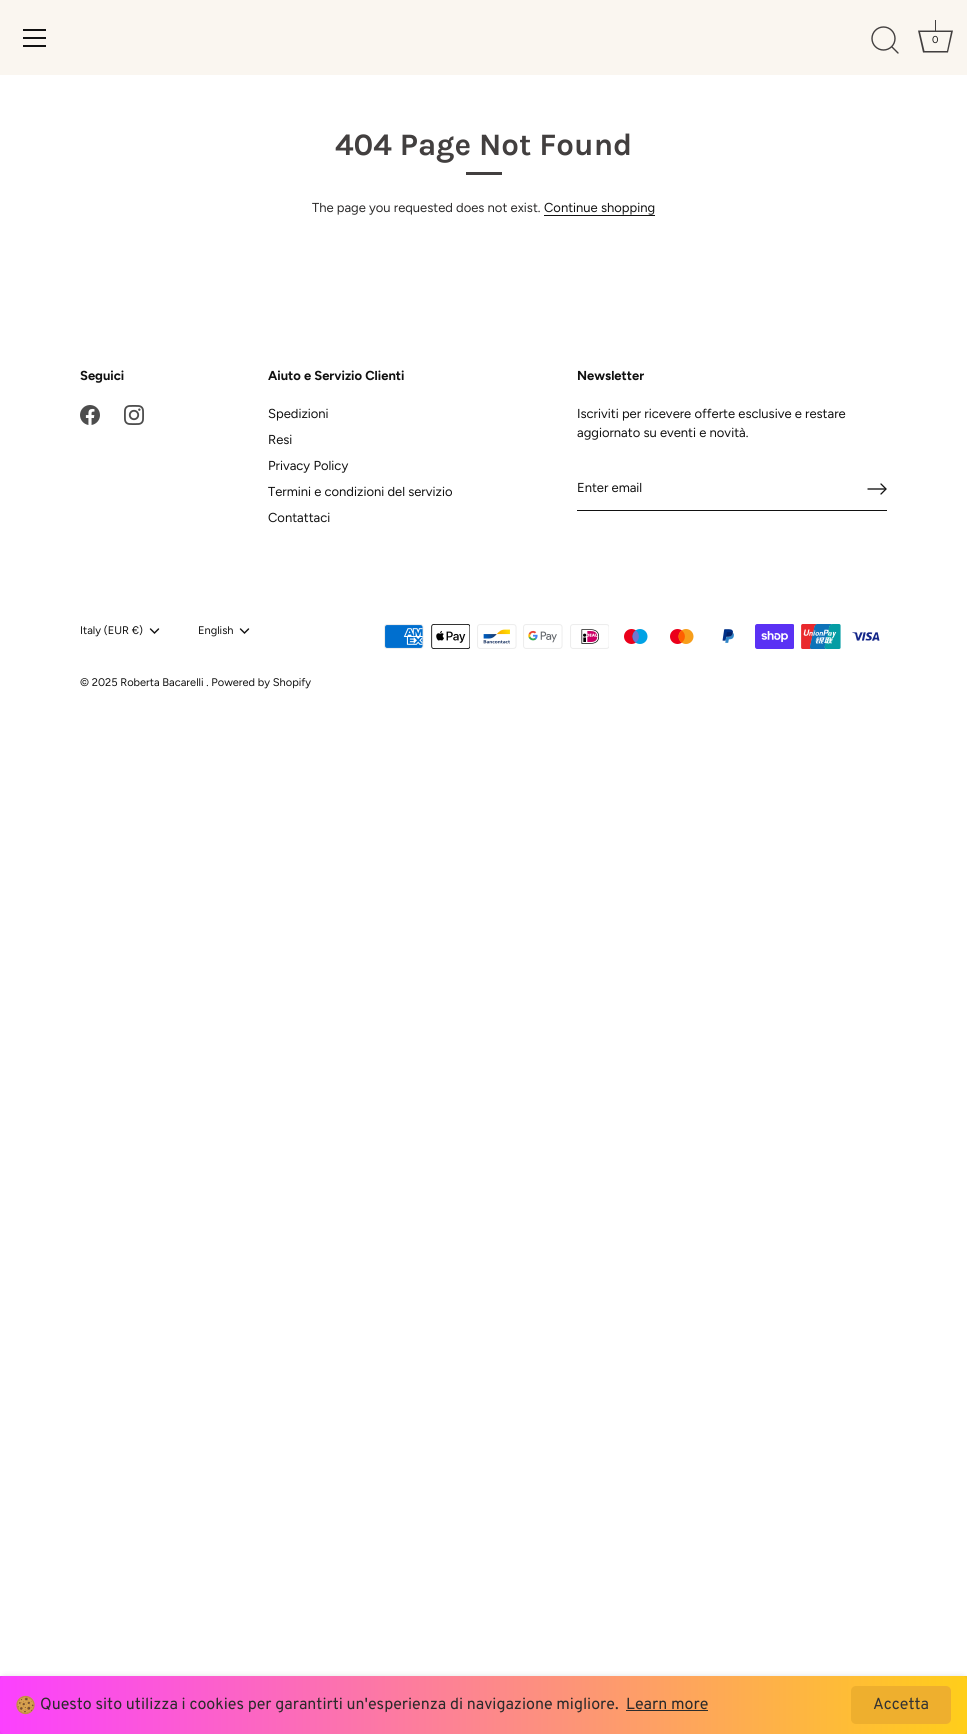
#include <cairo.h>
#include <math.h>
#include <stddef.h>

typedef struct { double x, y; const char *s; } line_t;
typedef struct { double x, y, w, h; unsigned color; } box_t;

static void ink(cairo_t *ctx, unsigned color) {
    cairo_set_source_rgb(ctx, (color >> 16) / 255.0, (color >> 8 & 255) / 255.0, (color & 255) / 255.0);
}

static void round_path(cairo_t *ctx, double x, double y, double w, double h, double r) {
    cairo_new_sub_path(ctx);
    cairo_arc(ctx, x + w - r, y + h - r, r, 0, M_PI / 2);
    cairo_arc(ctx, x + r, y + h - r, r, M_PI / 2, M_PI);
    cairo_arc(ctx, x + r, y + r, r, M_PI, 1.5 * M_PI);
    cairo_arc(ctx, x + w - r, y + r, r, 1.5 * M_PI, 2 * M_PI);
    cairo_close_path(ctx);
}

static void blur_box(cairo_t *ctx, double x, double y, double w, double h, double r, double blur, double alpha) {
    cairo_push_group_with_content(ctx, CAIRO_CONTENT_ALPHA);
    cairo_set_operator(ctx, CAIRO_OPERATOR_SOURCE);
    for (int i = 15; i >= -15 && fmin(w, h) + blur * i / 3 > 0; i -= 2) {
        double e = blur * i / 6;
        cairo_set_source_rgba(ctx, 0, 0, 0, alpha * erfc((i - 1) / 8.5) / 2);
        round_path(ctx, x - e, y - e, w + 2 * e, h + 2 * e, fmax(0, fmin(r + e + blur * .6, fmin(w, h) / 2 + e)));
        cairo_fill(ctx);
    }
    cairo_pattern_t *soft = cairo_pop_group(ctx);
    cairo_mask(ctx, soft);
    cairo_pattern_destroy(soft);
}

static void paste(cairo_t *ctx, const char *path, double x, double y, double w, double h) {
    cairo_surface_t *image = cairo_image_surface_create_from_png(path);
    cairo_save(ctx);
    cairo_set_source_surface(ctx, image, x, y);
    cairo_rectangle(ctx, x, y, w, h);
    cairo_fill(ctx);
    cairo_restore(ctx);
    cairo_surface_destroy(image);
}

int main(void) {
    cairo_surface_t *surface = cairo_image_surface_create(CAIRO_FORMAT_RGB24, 967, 1734);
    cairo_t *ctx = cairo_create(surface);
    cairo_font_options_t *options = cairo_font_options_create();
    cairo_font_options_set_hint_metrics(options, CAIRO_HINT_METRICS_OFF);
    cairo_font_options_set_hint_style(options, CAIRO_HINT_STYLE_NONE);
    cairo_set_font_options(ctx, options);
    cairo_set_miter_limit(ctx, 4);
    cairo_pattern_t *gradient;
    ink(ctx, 0xFFFFFF);
    cairo_paint(ctx);
    {
        static const box_t items[] = {
            {0, 0, 967, 75, 0xFAF6F0},
            {23, 29, 23, 2, 0x111111},
            {23, 37, 23, 2, 0x111111},
            {23, 45, 23, 2, 0x111111},
        };
        for (size_t i = 0; i < sizeof items / sizeof *items; i++) {
            ink(ctx, items[i].color);
            cairo_rectangle(ctx, items[i].x, items[i].y, items[i].w, items[i].h);
            cairo_fill(ctx);
        }
    }
    cairo_arc(ctx, 883.5, 38.5, 11.5, 0, 2 * M_PI);
    ink(ctx, 0x423F3F);
    cairo_set_line_width(ctx, 1.4);
    cairo_stroke(ctx);
    cairo_new_path(ctx);
    cairo_move_to(ctx, 898, 53);
    cairo_line_to(ctx, 892, 47);
    cairo_set_line_cap(ctx, CAIRO_LINE_CAP_ROUND);
    cairo_set_line_join(ctx, CAIRO_LINE_JOIN_ROUND);
    cairo_stroke(ctx);
    cairo_new_path(ctx);
    cairo_move_to(ctx, 951, 32);
    cairo_line_to(ctx, 947, 51);
    cairo_line_to(ctx, 924.5, 51);
    cairo_line_to(ctx, 920, 32);
    cairo_line_to(ctx, 951, 32);
    cairo_move_to(ctx, 953, 30.5);
    cairo_line_to(ctx, 918, 30.5);
    cairo_line_to(ctx, 923, 52.5);
    cairo_line_to(ctx, 948, 52.5);
    cairo_close_path(ctx);
    cairo_fill(ctx);
    cairo_rectangle(ctx, 935, 20, 1, 11);
    cairo_fill(ctx);
    cairo_select_font_face(ctx, "Figtree", CAIRO_FONT_SLANT_NORMAL, CAIRO_FONT_WEIGHT_NORMAL);
    cairo_set_font_size(ctx, 10);
    ink(ctx, 0x111111);
    cairo_move_to(ctx, 932, 43);
    cairo_show_text(ctx, "0");
    cairo_select_font_face(ctx, "Karla", CAIRO_FONT_SLANT_NORMAL, CAIRO_FONT_WEIGHT_BOLD);
    cairo_set_font_size(ctx, 31.25);
    ink(ctx, 0x423F3F);
    cairo_move_to(ctx, 335, 155);
    cairo_show_text(ctx, "404 Page Not Found");
    cairo_rectangle(ctx, 466, 172, 36, 3);
    cairo_fill(ctx);
    cairo_select_font_face(ctx, "Figtree", CAIRO_FONT_SLANT_NORMAL, CAIRO_FONT_WEIGHT_NORMAL);
    cairo_set_font_size(ctx, 13);
    ink(ctx, 0x2B2A2A);
    cairo_move_to(ctx, 312, 212);
    cairo_show_text(ctx, "The page you requested does not exist.");
    ink(ctx, 0x111111);
    cairo_move_to(ctx, 544, 212);
    cairo_show_text(ctx, "Continue shopping");
    cairo_rectangle(ctx, 544, 215, 111, 1);
    cairo_fill(ctx);
    cairo_select_font_face(ctx, "Figtree", CAIRO_FONT_SLANT_NORMAL, CAIRO_FONT_WEIGHT_BOLD);
    cairo_move_to(ctx, 80, 380);
    cairo_show_text(ctx, "Seguici");
    paste(ctx, "media/1.png", 80, 405, 20, 20);
    paste(ctx, "media/2.png", 124, 405, 20, 20);
    cairo_move_to(ctx, 268, 380);
    cairo_show_text(ctx, "Aiuto e Servizio Clienti");
    cairo_select_font_face(ctx, "Figtree", CAIRO_FONT_SLANT_NORMAL, CAIRO_FONT_WEIGHT_NORMAL);
    {
        static const line_t items[] = {
            {268, 418, "Spedizioni"},
            {268, 444, "Resi"},
            {268, 470, "Privacy Policy"},
            {268, 496, "Termini e condizioni del servizio"},
            {268, 522, "Contattaci"},
        };
        for (size_t i = 0; i < sizeof items / sizeof *items; i++) {
            cairo_move_to(ctx, items[i].x, items[i].y);
            cairo_show_text(ctx, items[i].s);
        }
    }
    cairo_select_font_face(ctx, "Figtree", CAIRO_FONT_SLANT_NORMAL, CAIRO_FONT_WEIGHT_BOLD);
    cairo_move_to(ctx, 577, 380);
    cairo_show_text(ctx, "Newsletter");
    cairo_select_font_face(ctx, "Figtree", CAIRO_FONT_SLANT_NORMAL, CAIRO_FONT_WEIGHT_NORMAL);
    cairo_move_to(ctx, 577, 418);
    cairo_show_text(ctx, "Iscriviti per ricevere offerte esclusive e restare");
    cairo_move_to(ctx, 577, 437);
    cairo_show_text(ctx, "aggiornato su eventi e novità.");
    cairo_rectangle(ctx, 577, 510, 310, 1);
    cairo_fill(ctx);
    cairo_move_to(ctx, 577, 492);
    cairo_show_text(ctx, "Enter email");
    cairo_new_path(ctx);
    cairo_move_to(ctx, 881, 494);
    cairo_line_to(ctx, 886, 489);
    cairo_line_to(ctx, 881, 484);
    cairo_set_line_width(ctx, 1.3);
    cairo_set_line_join(ctx, CAIRO_LINE_JOIN_MITER);
    cairo_stroke(ctx);
    cairo_new_path(ctx);
    cairo_move_to(ctx, 885, 489);
    cairo_line_to(ctx, 868, 489);
    cairo_set_line_join(ctx, CAIRO_LINE_JOIN_ROUND);
    cairo_stroke(ctx);
    cairo_set_font_size(ctx, 11.05);
    cairo_move_to(ctx, 80, 634);
    cairo_show_text(ctx, "Italy (EUR €)");
    cairo_new_path(ctx);
    cairo_move_to(ctx, 150.5, 629);
    cairo_line_to(ctx, 154.5, 633);
    cairo_line_to(ctx, 158.5, 629);
    cairo_set_line_width(ctx, 1.4);
    cairo_set_line_join(ctx, CAIRO_LINE_JOIN_MITER);
    cairo_stroke(ctx);
    cairo_move_to(ctx, 198, 634);
    cairo_show_text(ctx, "English");
    cairo_new_path(ctx);
    cairo_move_to(ctx, 240.5, 629);
    cairo_line_to(ctx, 244.5, 633);
    cairo_line_to(ctx, 248.5, 629);
    cairo_stroke(ctx);
    cairo_move_to(ctx, 80, 686);
    cairo_show_text(ctx, "© 2025 Roberta Bacarelli . Powered by Shopify");
    paste(ctx, "media/3.png", 384, 624, 40, 25);
    paste(ctx, "media/4.png", 431, 624, 39, 25);
    paste(ctx, "media/5.png", 477, 624, 40, 25);
    paste(ctx, "media/6.png", 523, 624, 40, 25);
    paste(ctx, "media/7.png", 570, 624, 39, 25);
    paste(ctx, "media/8.png", 624, 629, 24, 15);
    paste(ctx, "media/9.png", 670, 629, 24, 15);
    paste(ctx, "media/10.png", 722, 629, 12, 14);
    paste(ctx, "media/11.png", 755, 624, 39, 25);
    paste(ctx, "media/12.png", 801, 624, 40, 25);
    paste(ctx, "media/13.png", 852, 632, 28, 9);
    gradient = cairo_pattern_create_linear(0, 1705, 967, 1705);
    cairo_pattern_add_color_stop_rgba(gradient, 0, 0.984, 0.251, 1, 1);
    cairo_pattern_add_color_stop_rgba(gradient, 1, 1, 0.808, 0.102, 1);
    cairo_set_source(ctx, gradient);
    cairo_pattern_destroy(gradient);
    cairo_rectangle(ctx, 0, 1676, 967, 58);
    cairo_fill(ctx);
    cairo_save(ctx);
    cairo_set_fill_rule(ctx, CAIRO_FILL_RULE_EVEN_ODD);
    cairo_new_path(ctx);
    cairo_move_to(ctx, 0, 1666);
    cairo_line_to(ctx, 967, 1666);
    cairo_line_to(ctx, 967, 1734);
    cairo_line_to(ctx, 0, 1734);
    cairo_close_path(ctx);
    cairo_move_to(ctx, 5, 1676);
    cairo_line_to(ctx, 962, 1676);
    cairo_curve_to(ctx, 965, 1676, 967, 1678, 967, 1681);
    cairo_line_to(ctx, 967, 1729);
    cairo_curve_to(ctx, 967, 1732, 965, 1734, 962, 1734);
    cairo_line_to(ctx, 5, 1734);
    cairo_curve_to(ctx, 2, 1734, 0, 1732, 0, 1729);
    cairo_line_to(ctx, 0, 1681);
    cairo_curve_to(ctx, 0, 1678, 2, 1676, 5, 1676);
    cairo_close_path(ctx);
    cairo_clip(ctx);
    ink(ctx, 0x000000);
    blur_box(ctx, 0, 1676, 967, 58, 5, 3, 0.12);
    cairo_restore(ctx);
    paste(ctx, "media/14.png", 16, 1695, 19, 20);
    cairo_select_font_face(ctx, "Overpass", CAIRO_FONT_SLANT_NORMAL, CAIRO_FONT_WEIGHT_NORMAL);
    cairo_set_font_size(ctx, 16);
    ink(ctx, 0x2B2A2A);
    cairo_move_to(ctx, 40, 1709);
    cairo_show_text(ctx, "Questo sito utilizza i cookies per garantirti un'esperienza di navigazione migliore.");
    cairo_move_to(ctx, 626, 1709);
    cairo_show_text(ctx, "Learn more");
    ink(ctx, 0x2D2D2D);
    cairo_rectangle(ctx, 626, 1710, 82, 1);
    cairo_fill(ctx);
    ink(ctx, 0xEEAF2E);
    round_path(ctx, 851, 1686, 100, 38, 5);
    cairo_fill(ctx);
    ink(ctx, 0x333333);
    cairo_move_to(ctx, 873, 1709);
    cairo_show_text(ctx, "Accetta");
    cairo_surface_write_to_png(surface, "image.png");
    cairo_font_options_destroy(options);
    cairo_destroy(ctx);
    cairo_surface_destroy(surface);
    return 0;
}
